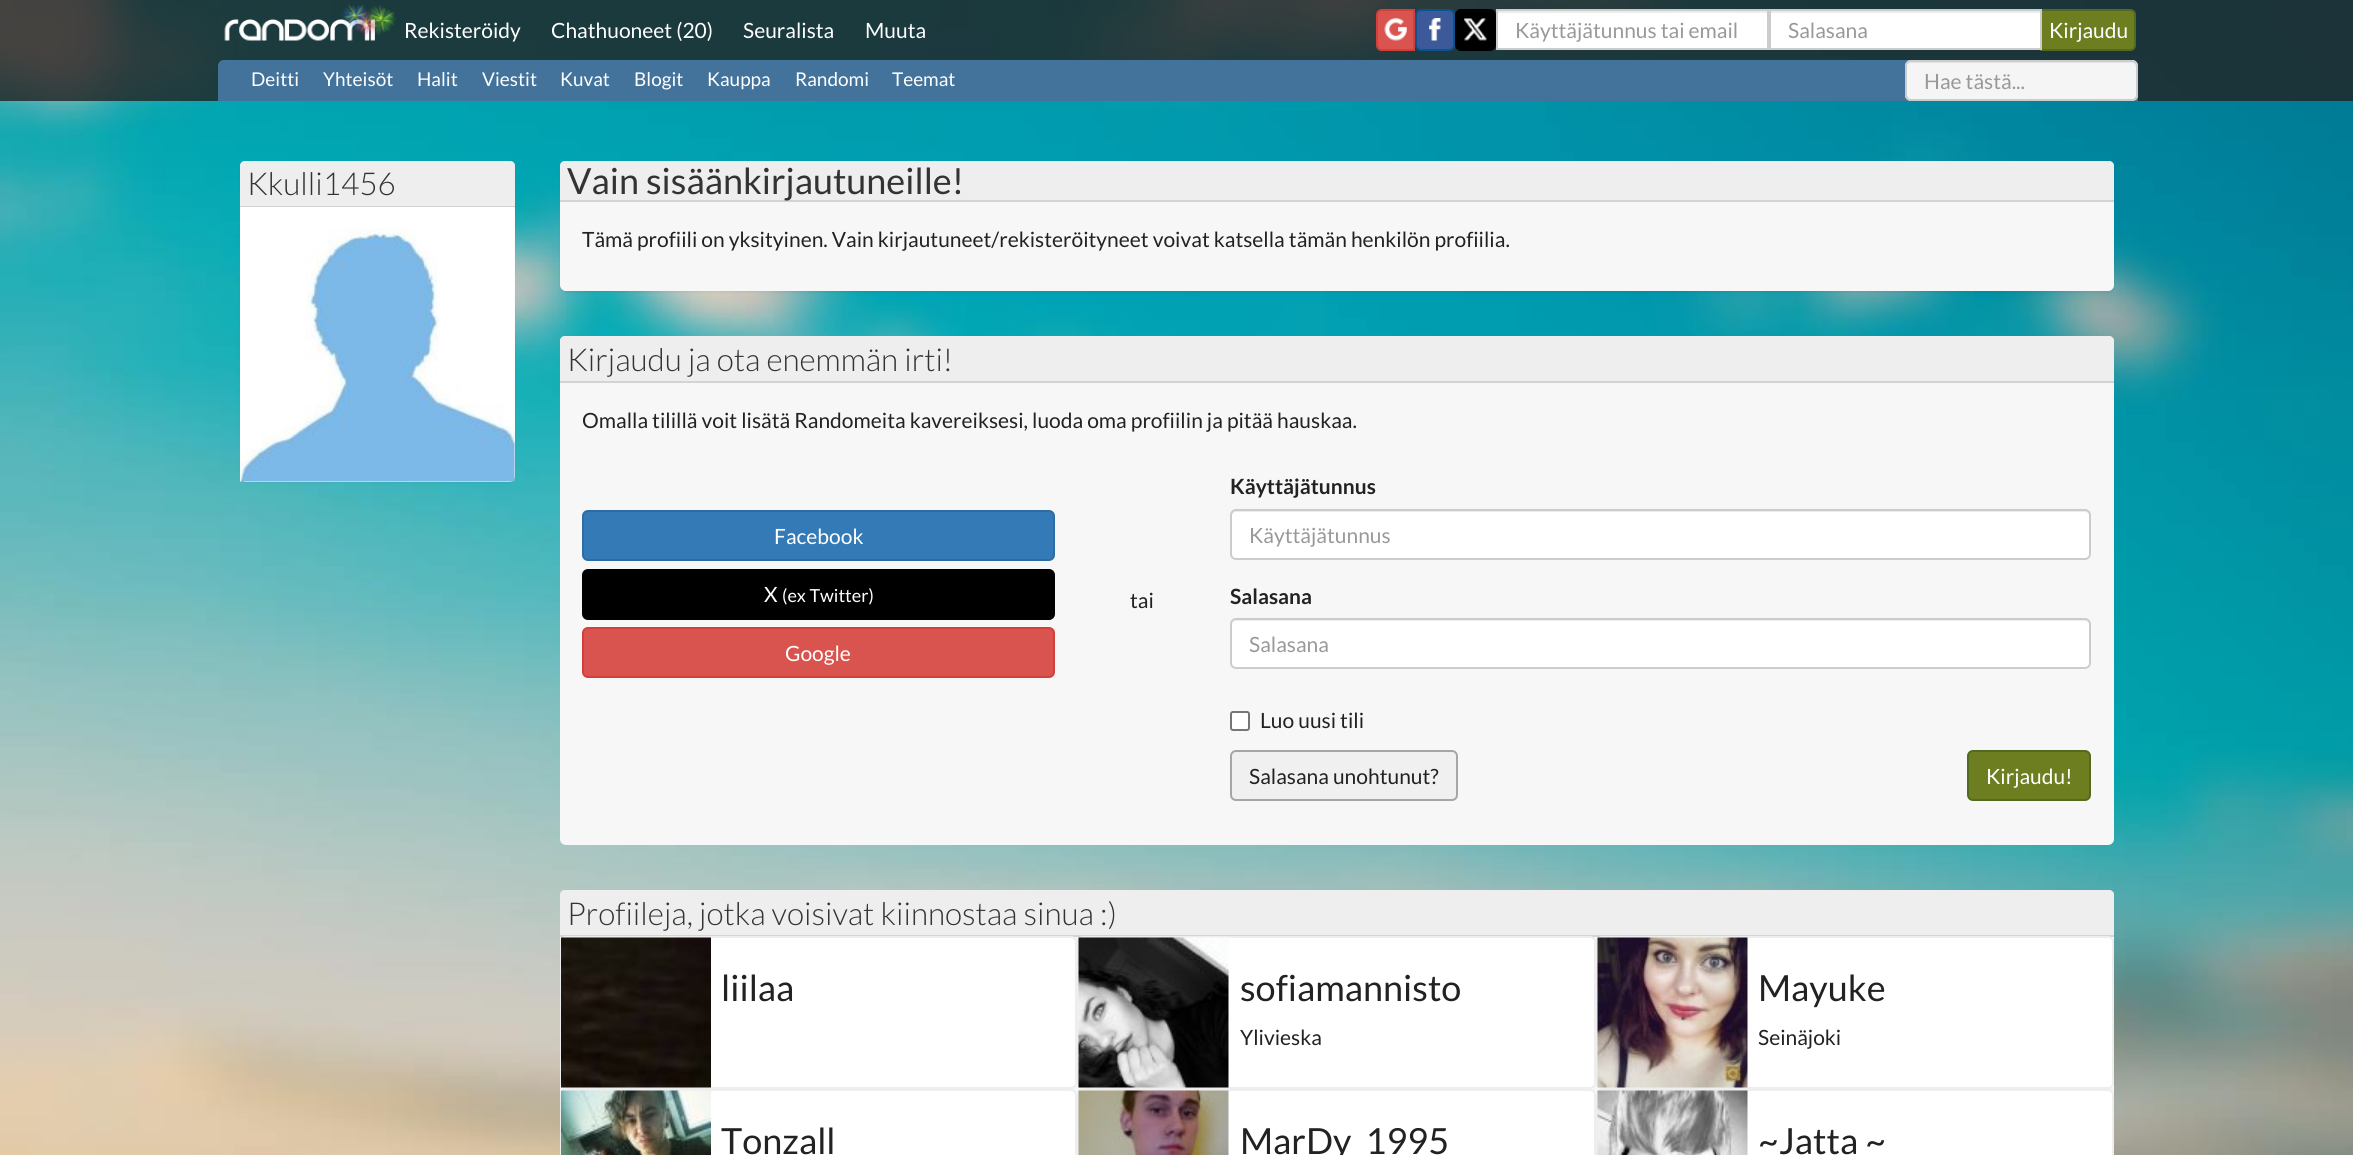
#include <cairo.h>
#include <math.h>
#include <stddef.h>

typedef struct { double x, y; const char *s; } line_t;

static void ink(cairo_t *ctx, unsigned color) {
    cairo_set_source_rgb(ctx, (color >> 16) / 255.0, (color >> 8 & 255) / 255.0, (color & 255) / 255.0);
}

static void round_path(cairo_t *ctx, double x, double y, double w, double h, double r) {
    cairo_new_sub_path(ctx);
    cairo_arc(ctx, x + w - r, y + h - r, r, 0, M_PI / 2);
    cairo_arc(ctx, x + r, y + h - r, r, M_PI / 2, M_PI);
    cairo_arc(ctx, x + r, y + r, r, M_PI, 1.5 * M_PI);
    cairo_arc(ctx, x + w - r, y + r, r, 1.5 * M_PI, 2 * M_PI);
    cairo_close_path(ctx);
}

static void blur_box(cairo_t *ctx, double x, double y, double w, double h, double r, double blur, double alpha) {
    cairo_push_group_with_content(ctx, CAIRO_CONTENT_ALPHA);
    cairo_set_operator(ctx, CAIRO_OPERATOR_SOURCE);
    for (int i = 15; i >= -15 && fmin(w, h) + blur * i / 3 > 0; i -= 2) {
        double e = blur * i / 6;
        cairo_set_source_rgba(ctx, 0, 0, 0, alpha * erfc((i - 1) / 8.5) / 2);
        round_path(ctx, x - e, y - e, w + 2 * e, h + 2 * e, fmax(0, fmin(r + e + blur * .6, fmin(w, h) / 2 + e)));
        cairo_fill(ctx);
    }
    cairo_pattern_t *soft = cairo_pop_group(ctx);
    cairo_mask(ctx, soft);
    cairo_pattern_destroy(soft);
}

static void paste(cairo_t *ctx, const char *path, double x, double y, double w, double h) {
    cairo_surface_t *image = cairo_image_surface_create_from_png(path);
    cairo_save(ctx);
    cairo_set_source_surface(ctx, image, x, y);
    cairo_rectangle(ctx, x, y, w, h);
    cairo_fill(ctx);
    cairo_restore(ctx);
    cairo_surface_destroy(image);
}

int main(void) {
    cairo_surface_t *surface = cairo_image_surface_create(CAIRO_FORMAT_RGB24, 2353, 1155);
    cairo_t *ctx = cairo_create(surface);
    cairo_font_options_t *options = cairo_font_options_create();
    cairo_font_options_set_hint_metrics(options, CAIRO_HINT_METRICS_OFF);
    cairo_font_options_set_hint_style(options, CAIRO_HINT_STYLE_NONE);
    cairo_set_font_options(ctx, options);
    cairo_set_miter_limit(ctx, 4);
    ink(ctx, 0xFFFFFF);
    cairo_paint(ctx);
    paste(ctx, "media/1.png", 0, 0, 2353, 1155);
    cairo_set_source_rgba(ctx, 0.133, 0.133, 0.133, 0.8);
    cairo_rectangle(ctx, 0, 0, 2353, 101);
    cairo_fill(ctx);
    paste(ctx, "media/3.png", 224, 19, 151, 22);
    paste(ctx, "media/2.png", 340, 4, 57, 32);
    cairo_select_font_face(ctx, "Lato", CAIRO_FONT_SLANT_NORMAL, CAIRO_FONT_WEIGHT_NORMAL);
    cairo_set_font_size(ctx, 21);
    ink(ctx, 0xFFFFFF);
    {
        static const line_t items[] = {
            {404, 38, "Rekisteröidy"},
            {551, 38, "Chathuoneet (20)"},
            {743, 38, "Seuralista"},
            {865, 38, "Muuta"},
        };
        for (size_t i = 0; i < sizeof items / sizeof *items; i++) {
            cairo_move_to(ctx, items[i].x, items[i].y);
            cairo_show_text(ctx, items[i].s);
        }
    }
    ink(ctx, 0xD9534F);
    cairo_new_path(ctx);
    cairo_move_to(ctx, 1382, 10);
    cairo_line_to(ctx, 1414, 10);
    cairo_line_to(ctx, 1414, 50);
    cairo_line_to(ctx, 1382, 50);
    cairo_curve_to(ctx, 1379, 50, 1377, 48, 1377, 45);
    cairo_line_to(ctx, 1377, 15);
    cairo_curve_to(ctx, 1377, 12, 1379, 10, 1382, 10);
    cairo_close_path(ctx);
    cairo_fill_preserve(ctx);
    ink(ctx, 0xD43F3A);
    cairo_stroke(ctx);
    paste(ctx, "media/4.png", 1384, 18, 23, 23);
    ink(ctx, 0x3C5A99);
    round_path(ctx, 1416, 10, 38, 40, 5);
    cairo_fill_preserve(ctx);
    ink(ctx, 0x095393);
    cairo_stroke(ctx);
    paste(ctx, "media/5.png", 1429, 18, 12, 23);
    ink(ctx, 0x000000);
    round_path(ctx, 1456, 10, 39, 40, 5);
    cairo_fill_preserve(ctx);
    cairo_stroke(ctx);
    paste(ctx, "media/6.png", 1464, 18, 23, 23);
    ink(ctx, 0xFFFFFF);
    cairo_rectangle(ctx, 1498, 13, 269, 35);
    cairo_fill(ctx);
    ink(ctx, 0xECECEC);
    cairo_rectangle(ctx, 1497, 11, 270, 2);
    cairo_fill(ctx);
    cairo_rectangle(ctx, 1497, 10, 271, 39);
    ink(ctx, 0xCCCCCC);
    cairo_stroke(ctx);
    ink(ctx, 0x999999);
    cairo_move_to(ctx, 1515, 38);
    cairo_show_text(ctx, "Käyttäjätunnus tai email");
    ink(ctx, 0xFFFFFF);
    cairo_rectangle(ctx, 1771, 13, 269, 35);
    cairo_fill(ctx);
    ink(ctx, 0xECECEC);
    cairo_rectangle(ctx, 1770, 11, 270, 2);
    cairo_fill(ctx);
    ink(ctx, 0x6D7E20);
    cairo_new_path(ctx);
    cairo_move_to(ctx, 2041, 10);
    cairo_line_to(ctx, 2130, 10);
    cairo_curve_to(ctx, 2133, 10, 2135, 12, 2135, 15);
    cairo_line_to(ctx, 2135, 45);
    cairo_curve_to(ctx, 2135, 48, 2133, 50, 2130, 50);
    cairo_line_to(ctx, 2041, 50);
    cairo_close_path(ctx);
    cairo_fill_preserve(ctx);
    ink(ctx, 0x526B21);
    cairo_stroke(ctx);
    cairo_rectangle(ctx, 1770, 10, 271, 39);
    ink(ctx, 0xCCCCCC);
    cairo_stroke(ctx);
    ink(ctx, 0x999999);
    cairo_move_to(ctx, 1788, 38);
    cairo_show_text(ctx, "Salasana");
    ink(ctx, 0xFFFFFF);
    cairo_move_to(ctx, 2049, 38);
    cairo_show_text(ctx, "Kirjaudu");
    ink(ctx, 0x43739B);
    cairo_new_path(ctx);
    cairo_move_to(ctx, 224, 60);
    cairo_line_to(ctx, 2132, 60);
    cairo_curve_to(ctx, 2135.5, 60, 2138, 62.5, 2138, 66);
    cairo_line_to(ctx, 2138, 101);
    cairo_line_to(ctx, 218, 101);
    cairo_line_to(ctx, 218, 66);
    cairo_curve_to(ctx, 218, 62.5, 220.5, 60, 224, 60);
    cairo_close_path(ctx);
    cairo_fill(ctx);
    cairo_set_font_size(ctx, 19);
    ink(ctx, 0xFFFFFF);
    {
        static const line_t items[] = {
            {251, 86, "Deitti"},
            {323, 86, "Yhteisöt"},
            {417, 86, "Halit"},
            {482, 86, "Viestit"},
            {560, 86, "Kuvat"},
            {634, 86, "Blogit"},
            {707, 86, "Kauppa"},
            {795, 86, "Randomi"},
            {892, 86, "Teemat"},
        };
        for (size_t i = 0; i < sizeof items / sizeof *items; i++) {
            cairo_move_to(ctx, items[i].x, items[i].y);
            cairo_show_text(ctx, items[i].s);
        }
    }
    ink(ctx, 0xF5F5F5);
    round_path(ctx, 1905, 60, 233, 41, 6);
    cairo_fill(ctx);
    ink(ctx, 0xE3E3E3);
    cairo_new_path(ctx);
    cairo_move_to(ctx, 1911, 63);
    cairo_line_to(ctx, 2132, 63);
    cairo_curve_to(ctx, 2134, 63, 2136, 65, 2136, 68);
    cairo_line_to(ctx, 2136, 67);
    cairo_curve_to(ctx, 2136, 64, 2134, 62, 2131, 62);
    cairo_line_to(ctx, 1912, 62);
    cairo_curve_to(ctx, 1910, 62, 1909, 63, 1908, 64);
    cairo_close_path(ctx);
    cairo_fill(ctx);
    round_path(ctx, 1906, 61, 231, 39, 5);
    ink(ctx, 0xCCCCCC);
    cairo_stroke(ctx);
    cairo_set_font_size(ctx, 21);
    ink(ctx, 0x999999);
    cairo_move_to(ctx, 1924, 89);
    cairo_show_text(ctx, "Hae tästä...");
    ink(ctx, 0x000000);
    blur_box(ctx, 240, 162, 275, 321, 6, 1, 0.05);
    ink(ctx, 0xF7F7F7);
    round_path(ctx, 240, 161, 275, 321, 6);
    cairo_fill(ctx);
    ink(ctx, 0xEEEEEE);
    cairo_new_path(ctx);
    cairo_move_to(ctx, 245, 161);
    cairo_line_to(ctx, 510, 161);
    cairo_curve_to(ctx, 513, 161, 515, 163, 515, 166);
    cairo_line_to(ctx, 515, 207);
    cairo_line_to(ctx, 240, 207);
    cairo_line_to(ctx, 240, 166);
    cairo_curve_to(ctx, 240, 163, 242, 161, 245, 161);
    cairo_close_path(ctx);
    cairo_fill(ctx);
    ink(ctx, 0xD3D3D3);
    cairo_rectangle(ctx, 240, 206, 275, 2);
    cairo_fill(ctx);
    cairo_select_font_face(ctx, "Lato Light", CAIRO_FONT_SLANT_NORMAL, CAIRO_FONT_WEIGHT_NORMAL);
    cairo_set_font_size(ctx, 31.5);
    ink(ctx, 0x333333);
    cairo_move_to(ctx, 247, 195);
    cairo_show_text(ctx, "Kkulli1456");
    paste(ctx, "media/7.png", 240, 207, 275, 275);
    ink(ctx, 0x000000);
    blur_box(ctx, 560, 162, 1554, 131, 6, 1, 0.05);
    ink(ctx, 0xF7F7F7);
    round_path(ctx, 560, 161, 1554, 130, 6);
    cairo_fill(ctx);
    ink(ctx, 0xEEEEEE);
    cairo_new_path(ctx);
    cairo_move_to(ctx, 565, 161);
    cairo_line_to(ctx, 2109, 161);
    cairo_curve_to(ctx, 2112, 161, 2114, 163, 2114, 166);
    cairo_line_to(ctx, 2114, 201);
    cairo_line_to(ctx, 560, 201);
    cairo_line_to(ctx, 560, 166);
    cairo_curve_to(ctx, 560, 163, 562, 161, 565, 161);
    cairo_close_path(ctx);
    cairo_fill(ctx);
    ink(ctx, 0xD3D3D3);
    cairo_rectangle(ctx, 560, 200, 1554, 2);
    cairo_fill(ctx);
    cairo_select_font_face(ctx, "Lato", CAIRO_FONT_SLANT_NORMAL, CAIRO_FONT_WEIGHT_NORMAL);
    cairo_set_font_size(ctx, 36);
    ink(ctx, 0x333333);
    cairo_move_to(ctx, 567, 194);
    cairo_show_text(ctx, "Vain sisäänkirjautuneille!");
    cairo_set_font_size(ctx, 21);
    ink(ctx, 0x222222);
    cairo_move_to(ctx, 582, 247);
    cairo_show_text(ctx, "Tämä profiili on yksityinen. Vain kirjautuneet/rekisteröityneet voivat katsella tämän henkilön profiilia.");
    ink(ctx, 0xF7F7F7);
    round_path(ctx, 560, 336, 1554, 509, 6);
    cairo_fill(ctx);
    ink(ctx, 0xEEEEEE);
    cairo_new_path(ctx);
    cairo_move_to(ctx, 565, 336);
    cairo_line_to(ctx, 2109, 336);
    cairo_curve_to(ctx, 2112, 336, 2114, 338, 2114, 341);
    cairo_line_to(ctx, 2114, 383);
    cairo_line_to(ctx, 560, 383);
    cairo_line_to(ctx, 560, 341);
    cairo_curve_to(ctx, 560, 338, 562, 336, 565, 336);
    cairo_close_path(ctx);
    cairo_fill(ctx);
    ink(ctx, 0xD3D3D3);
    cairo_rectangle(ctx, 560, 381, 1554, 2);
    cairo_fill(ctx);
    cairo_select_font_face(ctx, "Lato Light", CAIRO_FONT_SLANT_NORMAL, CAIRO_FONT_WEIGHT_NORMAL);
    cairo_set_font_size(ctx, 31.5);
    ink(ctx, 0x333333);
    cairo_move_to(ctx, 567, 371);
    cairo_show_text(ctx, "Kirjaudu ja ota enemmän irti!");
    cairo_select_font_face(ctx, "Lato", CAIRO_FONT_SLANT_NORMAL, CAIRO_FONT_WEIGHT_NORMAL);
    cairo_set_font_size(ctx, 21);
    ink(ctx, 0x222222);
    cairo_move_to(ctx, 582, 428);
    cairo_show_text(ctx, "Omalla tilillä voit lisätä Randomeita kavereiksesi, luoda oma profiilin ja pitää hauskaa.");
    ink(ctx, 0x337AB7);
    round_path(ctx, 583, 511, 471, 49, 5);
    cairo_fill_preserve(ctx);
    ink(ctx, 0x2E6DA4);
    cairo_stroke(ctx);
    ink(ctx, 0xFFFFFF);
    cairo_move_to(ctx, 774, 544);
    cairo_show_text(ctx, "Facebook");
    ink(ctx, 0x000000);
    round_path(ctx, 583, 570, 471, 49, 5);
    cairo_fill_preserve(ctx);
    cairo_stroke(ctx);
    ink(ctx, 0xFFFFFF);
    cairo_move_to(ctx, 764, 602);
    cairo_show_text(ctx, "X");
    cairo_set_font_size(ctx, 18);
    cairo_move_to(ctx, 782, 602);
    cairo_show_text(ctx, "(ex Twitter)");
    ink(ctx, 0xD9534F);
    round_path(ctx, 583, 628, 471, 49, 5);
    cairo_fill_preserve(ctx);
    ink(ctx, 0xD43F3A);
    cairo_stroke(ctx);
    cairo_set_font_size(ctx, 21);
    ink(ctx, 0xFFFFFF);
    cairo_move_to(ctx, 785, 661);
    cairo_show_text(ctx, "Google");
    ink(ctx, 0x222222);
    cairo_move_to(ctx, 1130, 608);
    cairo_show_text(ctx, "tai");
    cairo_select_font_face(ctx, "Lato", CAIRO_FONT_SLANT_NORMAL, CAIRO_FONT_WEIGHT_BOLD);
    cairo_move_to(ctx, 1230, 494);
    cairo_show_text(ctx, "Käyttäjätunnus");
    ink(ctx, 0xFFFFFF);
    round_path(ctx, 1230, 509, 861, 51, 6);
    cairo_fill(ctx);
    ink(ctx, 0xECECEC);
    cairo_new_path(ctx);
    cairo_move_to(ctx, 1236, 512);
    cairo_line_to(ctx, 2085, 512);
    cairo_curve_to(ctx, 2087, 512, 2090, 514, 2090, 516);
    cairo_line_to(ctx, 2090, 515);
    cairo_curve_to(ctx, 2090, 512, 2088, 510, 2085, 510);
    cairo_line_to(ctx, 1237, 510);
    cairo_curve_to(ctx, 1234, 510, 1232, 512, 1232, 515);
    cairo_line_to(ctx, 1232, 516);
    cairo_curve_to(ctx, 1232, 514, 1234, 512, 1236, 512);
    cairo_close_path(ctx);
    cairo_fill(ctx);
    round_path(ctx, 1231, 510, 859, 49, 5);
    ink(ctx, 0xCCCCCC);
    cairo_stroke(ctx);
    cairo_select_font_face(ctx, "Lato", CAIRO_FONT_SLANT_NORMAL, CAIRO_FONT_WEIGHT_NORMAL);
    ink(ctx, 0x999999);
    cairo_move_to(ctx, 1249, 543);
    cairo_show_text(ctx, "Käyttäjätunnus");
    cairo_select_font_face(ctx, "Lato", CAIRO_FONT_SLANT_NORMAL, CAIRO_FONT_WEIGHT_BOLD);
    ink(ctx, 0x222222);
    cairo_move_to(ctx, 1230, 604);
    cairo_show_text(ctx, "Salasana");
    ink(ctx, 0xFFFFFF);
    round_path(ctx, 1230, 618, 861, 51, 6);
    cairo_fill(ctx);
    ink(ctx, 0xECECEC);
    cairo_new_path(ctx);
    cairo_move_to(ctx, 1236, 621);
    cairo_line_to(ctx, 2085, 621);
    cairo_curve_to(ctx, 2087, 621, 2090, 623, 2090, 626);
    cairo_line_to(ctx, 2090, 625);
    cairo_curve_to(ctx, 2090, 622, 2088, 620, 2085, 620);
    cairo_line_to(ctx, 1237, 620);
    cairo_curve_to(ctx, 1234, 620, 1232, 622, 1232, 625);
    cairo_line_to(ctx, 1232, 626);
    cairo_curve_to(ctx, 1232, 623, 1234, 621, 1236, 621);
    cairo_close_path(ctx);
    cairo_fill(ctx);
    round_path(ctx, 1231, 619, 859, 49, 5);
    ink(ctx, 0xCCCCCC);
    cairo_stroke(ctx);
    cairo_select_font_face(ctx, "Lato", CAIRO_FONT_SLANT_NORMAL, CAIRO_FONT_WEIGHT_NORMAL);
    ink(ctx, 0x999999);
    cairo_move_to(ctx, 1249, 652);
    cairo_show_text(ctx, "Salasana");
    ink(ctx, 0xFFFFFF);
    round_path(ctx, 1231, 712, 18, 18, 2);
    cairo_fill_preserve(ctx);
    ink(ctx, 0x767676);
    cairo_stroke(ctx);
    ink(ctx, 0x222222);
    cairo_move_to(ctx, 1260, 728);
    cairo_show_text(ctx, "Luo uusi tili");
    ink(ctx, 0xF0F0F0);
    round_path(ctx, 1231, 751, 226, 49, 5);
    cairo_fill_preserve(ctx);
    ink(ctx, 0xA6A6A6);
    cairo_stroke(ctx);
    ink(ctx, 0x222222);
    cairo_move_to(ctx, 1249, 784);
    cairo_show_text(ctx, "Salasana unohtunut?");
    ink(ctx, 0x6D7E20);
    round_path(ctx, 1968, 751, 122, 49, 5);
    cairo_fill_preserve(ctx);
    ink(ctx, 0x526B21);
    cairo_stroke(ctx);
    ink(ctx, 0xFFFFFF);
    cairo_move_to(ctx, 1986, 784);
    cairo_show_text(ctx, "Kirjaudu!");
    ink(ctx, 0xF7F7F7);
    round_path(ctx, 560, 890, 1554, 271, 6);
    cairo_fill(ctx);
    ink(ctx, 0xEEEEEE);
    cairo_new_path(ctx);
    cairo_move_to(ctx, 565, 890);
    cairo_line_to(ctx, 2109, 890);
    cairo_curve_to(ctx, 2112, 890, 2114, 892, 2114, 895);
    cairo_line_to(ctx, 2114, 936);
    cairo_line_to(ctx, 560, 936);
    cairo_line_to(ctx, 560, 895);
    cairo_curve_to(ctx, 560, 892, 562, 890, 565, 890);
    cairo_close_path(ctx);
    cairo_fill(ctx);
    ink(ctx, 0xD3D3D3);
    cairo_rectangle(ctx, 560, 935, 1554, 2);
    cairo_fill(ctx);
    cairo_select_font_face(ctx, "Lato Light", CAIRO_FONT_SLANT_NORMAL, CAIRO_FONT_WEIGHT_NORMAL);
    cairo_set_font_size(ctx, 31.5);
    ink(ctx, 0x333333);
    cairo_move_to(ctx, 567, 925);
    cairo_show_text(ctx, "Profiileja, jotka voisivat kiinnostaa sinua :)");
    ink(ctx, 0xFFFFFF);
    round_path(ctx, 561, 937, 515, 151, 5);
    cairo_fill_preserve(ctx);
    ink(ctx, 0xEEEEEE);
    cairo_stroke(ctx);
    paste(ctx, "media/8.png", 561, 937, 150, 151);
    cairo_select_font_face(ctx, "Lato", CAIRO_FONT_SLANT_NORMAL, CAIRO_FONT_WEIGHT_NORMAL);
    cairo_set_font_size(ctx, 36);
    ink(ctx, 0x222222);
    cairo_move_to(ctx, 721, 1001);
    cairo_show_text(ctx, "liilaa");
    ink(ctx, 0xFFFFFF);
    round_path(ctx, 1078, 937, 517, 151, 5);
    cairo_fill_preserve(ctx);
    ink(ctx, 0xEEEEEE);
    cairo_stroke(ctx);
    paste(ctx, "media/9.png", 1078, 937, 151, 151);
    ink(ctx, 0x222222);
    cairo_move_to(ctx, 1240, 1001);
    cairo_show_text(ctx, "sofiamannisto");
    cairo_set_font_size(ctx, 21);
    cairo_move_to(ctx, 1240, 1045);
    cairo_show_text(ctx, "Ylivieska");
    ink(ctx, 0xFFFFFF);
    round_path(ctx, 1597, 937, 516, 151, 5);
    cairo_fill_preserve(ctx);
    ink(ctx, 0xEEEEEE);
    cairo_stroke(ctx);
    paste(ctx, "media/10.png", 1597, 937, 151, 151);
    cairo_set_font_size(ctx, 36);
    ink(ctx, 0x222222);
    cairo_move_to(ctx, 1758, 1001);
    cairo_show_text(ctx, "Mayuke");
    cairo_set_font_size(ctx, 21);
    cairo_move_to(ctx, 1758, 1045);
    cairo_show_text(ctx, "Seinäjoki");
    ink(ctx, 0xFFFFFF);
    round_path(ctx, 561, 1090, 515, 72, 5);
    cairo_fill_preserve(ctx);
    ink(ctx, 0xEEEEEE);
    cairo_stroke(ctx);
    paste(ctx, "media/11.png", 561, 1090, 150, 65);
    cairo_set_font_size(ctx, 36);
    ink(ctx, 0x222222);
    cairo_move_to(ctx, 721, 1154);
    cairo_show_text(ctx, "Tonzall");
    ink(ctx, 0xFFFFFF);
    round_path(ctx, 1078, 1090, 517, 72, 5);
    cairo_fill_preserve(ctx);
    ink(ctx, 0xEEEEEE);
    cairo_stroke(ctx);
    paste(ctx, "media/12.png", 1078, 1090, 151, 65);
    ink(ctx, 0x222222);
    cairo_move_to(ctx, 1240, 1154);
    cairo_show_text(ctx, "MarDy_1995");
    ink(ctx, 0xFFFFFF);
    round_path(ctx, 1597, 1090, 516, 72, 5);
    cairo_fill_preserve(ctx);
    ink(ctx, 0xEEEEEE);
    cairo_stroke(ctx);
    paste(ctx, "media/13.png", 1597, 1090, 151, 65);
    ink(ctx, 0x222222);
    cairo_move_to(ctx, 1758, 1154);
    cairo_show_text(ctx, "~Jatta ~");
    cairo_surface_write_to_png(surface, "image.png");
    cairo_font_options_destroy(options);
    cairo_destroy(ctx);
    cairo_surface_destroy(surface);
    return 0;
}
